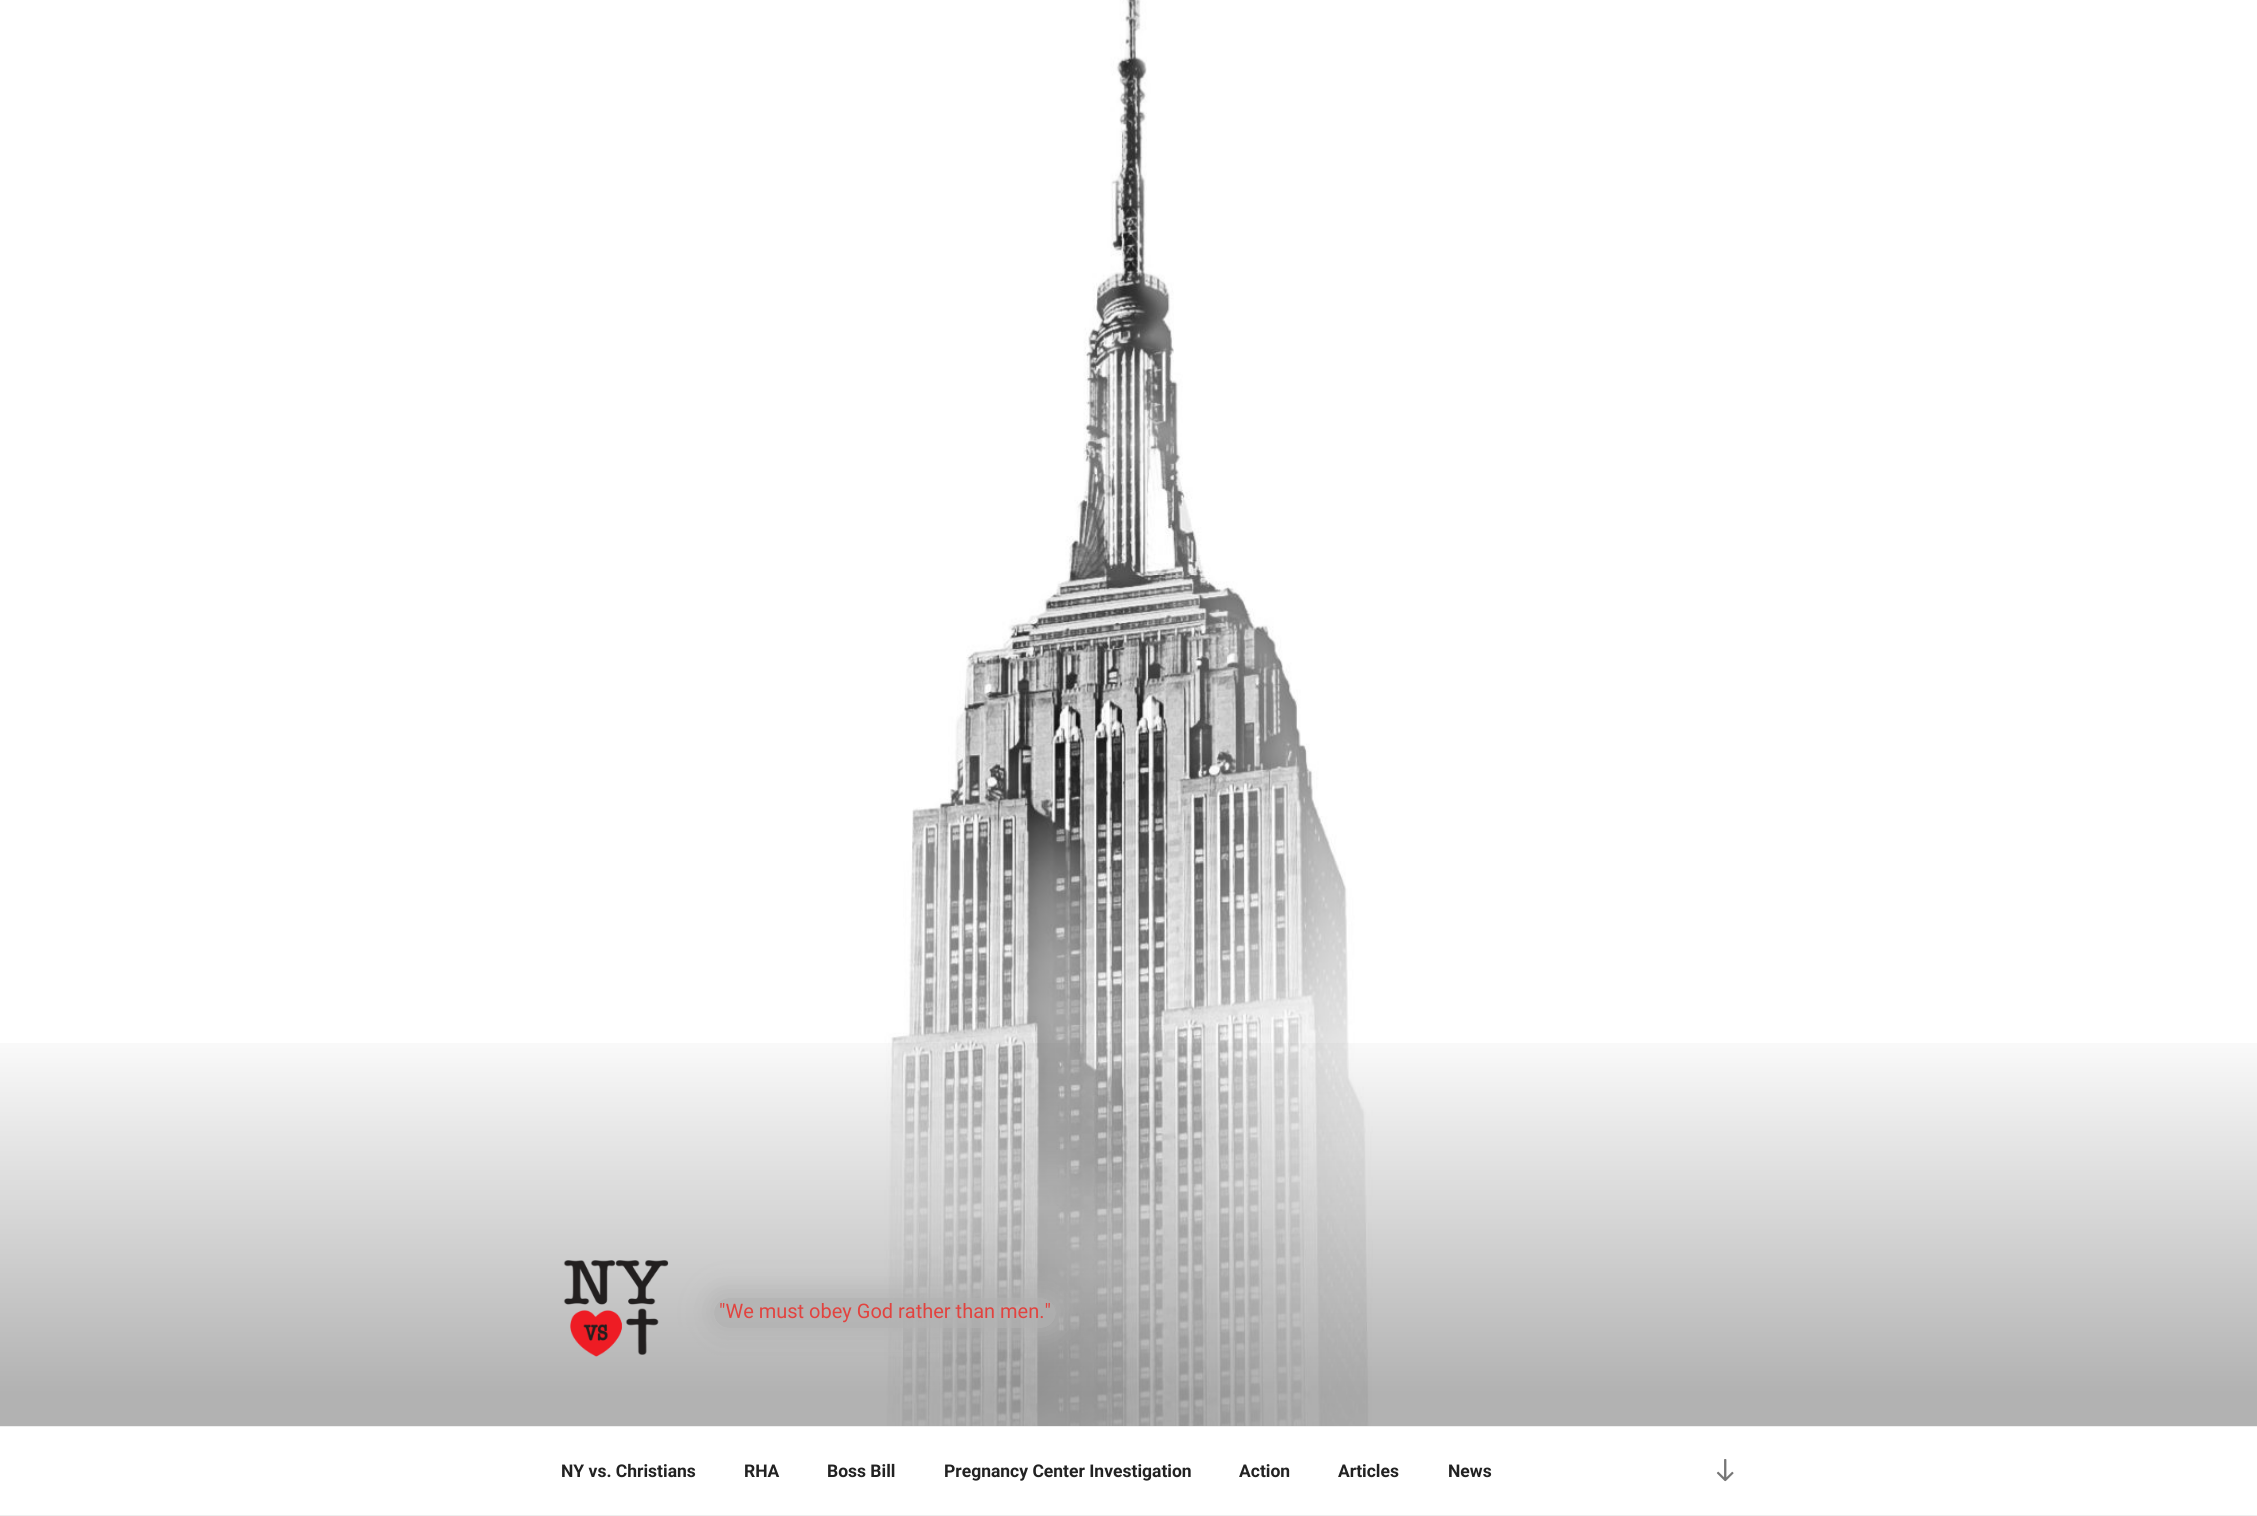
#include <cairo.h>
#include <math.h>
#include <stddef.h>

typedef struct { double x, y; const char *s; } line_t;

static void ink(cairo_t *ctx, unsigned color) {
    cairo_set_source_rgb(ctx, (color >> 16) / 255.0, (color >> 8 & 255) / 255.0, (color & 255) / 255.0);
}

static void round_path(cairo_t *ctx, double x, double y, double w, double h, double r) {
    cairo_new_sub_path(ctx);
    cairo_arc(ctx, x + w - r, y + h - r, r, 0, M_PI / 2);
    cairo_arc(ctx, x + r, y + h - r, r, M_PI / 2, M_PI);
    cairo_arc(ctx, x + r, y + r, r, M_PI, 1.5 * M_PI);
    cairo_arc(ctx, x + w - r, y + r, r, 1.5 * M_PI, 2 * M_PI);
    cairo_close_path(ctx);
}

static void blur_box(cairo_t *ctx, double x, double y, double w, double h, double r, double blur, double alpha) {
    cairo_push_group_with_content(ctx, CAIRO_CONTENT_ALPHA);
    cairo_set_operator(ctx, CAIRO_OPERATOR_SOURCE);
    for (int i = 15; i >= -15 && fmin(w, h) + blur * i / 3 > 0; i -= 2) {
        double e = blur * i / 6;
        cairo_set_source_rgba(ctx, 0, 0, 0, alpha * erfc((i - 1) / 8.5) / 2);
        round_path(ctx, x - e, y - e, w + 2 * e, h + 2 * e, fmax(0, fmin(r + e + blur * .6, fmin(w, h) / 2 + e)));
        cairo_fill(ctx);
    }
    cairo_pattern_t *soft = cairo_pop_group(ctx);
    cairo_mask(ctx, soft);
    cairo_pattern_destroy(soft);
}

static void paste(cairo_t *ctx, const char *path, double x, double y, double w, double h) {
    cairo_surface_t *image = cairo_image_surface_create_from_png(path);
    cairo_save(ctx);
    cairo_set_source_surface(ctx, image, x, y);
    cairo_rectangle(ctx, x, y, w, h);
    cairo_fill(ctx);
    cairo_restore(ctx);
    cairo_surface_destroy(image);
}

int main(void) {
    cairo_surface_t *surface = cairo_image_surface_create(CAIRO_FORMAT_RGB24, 2257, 1516);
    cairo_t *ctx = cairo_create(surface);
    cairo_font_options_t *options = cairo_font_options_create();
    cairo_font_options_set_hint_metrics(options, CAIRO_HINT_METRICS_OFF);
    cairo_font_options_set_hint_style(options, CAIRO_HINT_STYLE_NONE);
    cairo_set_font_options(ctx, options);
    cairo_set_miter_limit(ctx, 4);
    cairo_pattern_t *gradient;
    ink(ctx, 0xFFFFFF);
    cairo_paint(ctx);
    paste(ctx, "media/1.png", 0, 0, 2257, 1426);
    gradient = cairo_pattern_create_linear(1129, 1016, 1129, 1516);
    cairo_pattern_add_color_stop_rgba(gradient, 0, 0, 0, 0, 0);
    cairo_pattern_add_color_stop_rgba(gradient, 0.75, 0, 0, 0, 0.3);
    cairo_pattern_add_color_stop_rgba(gradient, 1, 0, 0, 0, 0.3);
    cairo_set_source(ctx, gradient);
    cairo_pattern_destroy(gradient);
    cairo_rectangle(ctx, 0, 1043, 2257, 383);
    cairo_fill(ctx);
    paste(ctx, "media/2.png", 563, 1260, 106, 97);
    cairo_save(ctx);
    cairo_set_fill_rule(ctx, CAIRO_FILL_RULE_EVEN_ODD);
    cairo_new_path(ctx);
    cairo_move_to(ctx, 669, 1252);
    cairo_line_to(ctx, 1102, 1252);
    cairo_line_to(ctx, 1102, 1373);
    cairo_line_to(ctx, 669, 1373);
    cairo_close_path(ctx);
    cairo_move_to(ctx, 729, 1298);
    cairo_line_to(ctx, 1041, 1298);
    cairo_curve_to(ctx, 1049.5, 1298, 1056, 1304.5, 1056, 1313);
    cairo_curve_to(ctx, 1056, 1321.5, 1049.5, 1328, 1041, 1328);
    cairo_line_to(ctx, 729, 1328);
    cairo_curve_to(ctx, 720.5, 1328, 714, 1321.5, 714, 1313);
    cairo_curve_to(ctx, 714, 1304.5, 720.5, 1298, 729, 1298);
    cairo_close_path(ctx);
    cairo_clip(ctx);
    ink(ctx, 0xB2B2B2);
    blur_box(ctx, 708, 1291, 355, 43, 21.5, 12.5, 0.8);
    cairo_restore(ctx);
    cairo_set_source_rgba(ctx, 0.698, 0.698, 0.698, 0.8);
    round_path(ctx, 714, 1298, 342, 30, 15);
    cairo_fill(ctx);
    cairo_select_font_face(ctx, "Roboto", CAIRO_FONT_SLANT_NORMAL, CAIRO_FONT_WEIGHT_NORMAL);
    cairo_set_font_size(ctx, 20);
    ink(ctx, 0xE2433F);
    cairo_move_to(ctx, 719, 1318);
    cairo_show_text(ctx, "\"We must obey God rather than men.\"");
    ink(ctx, 0xEEEEEE);
    cairo_rectangle(ctx, 0, 1426, 2257, 1);
    cairo_fill(ctx);
    cairo_rectangle(ctx, 0, 1515, 2257, 1);
    cairo_fill(ctx);
    cairo_select_font_face(ctx, "Roboto", CAIRO_FONT_SLANT_NORMAL, CAIRO_FONT_WEIGHT_BOLD);
    cairo_set_font_size(ctx, 17.5);
    ink(ctx, 0x222222);
    {
        static const line_t items[] = {
            {561, 1477, "NY vs. Christians"},
            {744, 1477, "RHA"},
            {827, 1477, "Boss Bill"},
            {944, 1477, "Pregnancy Center Investigation"},
            {1239, 1477, "Action"},
            {1338, 1477, "Articles"},
            {1448, 1477, "News"},
        };
        for (size_t i = 0; i < sizeof items / sizeof *items; i++) {
            cairo_move_to(ctx, items[i].x, items[i].y);
            cairo_show_text(ctx, items[i].s);
        }
    }
    paste(ctx, "media/3.png", 1716, 1459, 18, 23);
    cairo_surface_write_to_png(surface, "image.png");
    cairo_font_options_destroy(options);
    cairo_destroy(ctx);
    cairo_surface_destroy(surface);
    return 0;
}
